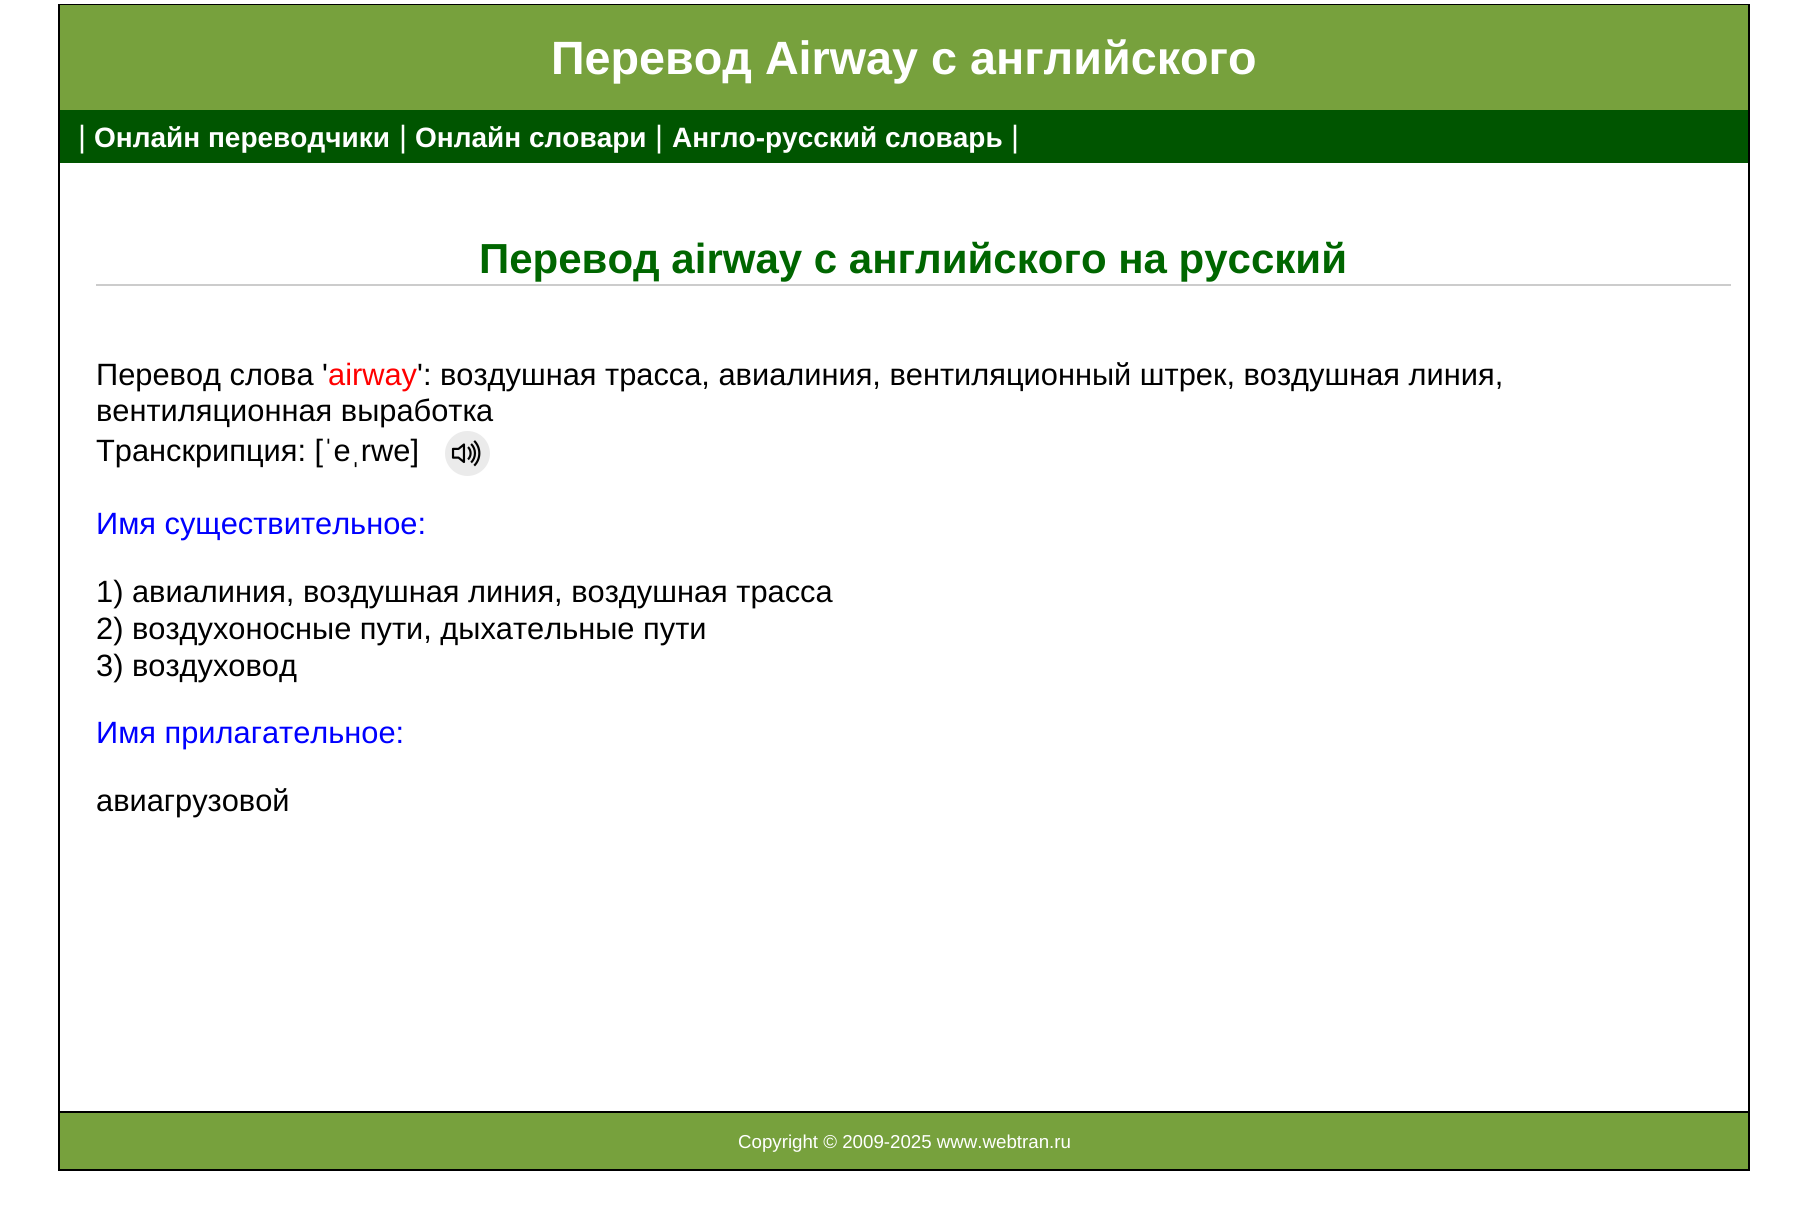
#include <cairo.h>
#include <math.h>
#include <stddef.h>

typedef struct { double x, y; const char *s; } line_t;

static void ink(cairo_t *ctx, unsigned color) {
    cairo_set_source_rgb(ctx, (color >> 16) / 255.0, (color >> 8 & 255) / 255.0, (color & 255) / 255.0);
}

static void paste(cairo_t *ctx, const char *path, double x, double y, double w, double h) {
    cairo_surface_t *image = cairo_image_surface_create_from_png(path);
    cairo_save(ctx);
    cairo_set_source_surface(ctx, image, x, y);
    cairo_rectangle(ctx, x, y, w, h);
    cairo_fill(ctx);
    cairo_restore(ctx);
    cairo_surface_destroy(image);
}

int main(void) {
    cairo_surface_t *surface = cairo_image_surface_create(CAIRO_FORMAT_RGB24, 1807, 1205);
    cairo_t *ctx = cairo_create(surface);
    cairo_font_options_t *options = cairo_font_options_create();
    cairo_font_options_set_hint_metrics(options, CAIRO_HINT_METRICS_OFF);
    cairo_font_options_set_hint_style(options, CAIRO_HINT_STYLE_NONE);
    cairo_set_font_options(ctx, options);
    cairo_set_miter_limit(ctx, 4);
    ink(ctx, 0xFFFFFF);
    cairo_paint(ctx);
    cairo_rectangle(ctx, 59, 5, 1690, 1165);
    ink(ctx, 0x000000);
    cairo_stroke(ctx);
    ink(ctx, 0x77A13D);
    cairo_rectangle(ctx, 60, 5, 1688, 105);
    cairo_fill(ctx);
    cairo_select_font_face(ctx, "Liberation Sans", CAIRO_FONT_SLANT_NORMAL, CAIRO_FONT_WEIGHT_BOLD);
    cairo_set_font_size(ctx, 46.7);
    ink(ctx, 0xFFFFFF);
    cairo_move_to(ctx, 551, 74);
    cairo_show_text(ctx, "Перевод Airway с английского");
    ink(ctx, 0x005500);
    cairo_rectangle(ctx, 60, 110, 1688, 53);
    cairo_fill(ctx);
    cairo_select_font_face(ctx, "Liberation Sans", CAIRO_FONT_SLANT_NORMAL, CAIRO_FONT_WEIGHT_NORMAL);
    cairo_set_font_size(ctx, 30.8);
    ink(ctx, 0xFFFFFF);
    cairo_move_to(ctx, 78, 147);
    cairo_show_text(ctx, "|");
    cairo_select_font_face(ctx, "Liberation Sans", CAIRO_FONT_SLANT_NORMAL, CAIRO_FONT_WEIGHT_BOLD);
    cairo_set_font_size(ctx, 28);
    cairo_move_to(ctx, 94, 147);
    cairo_show_text(ctx, "Онлайн переводчики");
    cairo_select_font_face(ctx, "Liberation Sans", CAIRO_FONT_SLANT_NORMAL, CAIRO_FONT_WEIGHT_NORMAL);
    cairo_set_font_size(ctx, 30.8);
    cairo_move_to(ctx, 399, 147);
    cairo_show_text(ctx, "|");
    cairo_select_font_face(ctx, "Liberation Sans", CAIRO_FONT_SLANT_NORMAL, CAIRO_FONT_WEIGHT_BOLD);
    cairo_set_font_size(ctx, 28);
    cairo_move_to(ctx, 415, 147);
    cairo_show_text(ctx, "Онлайн словари");
    cairo_select_font_face(ctx, "Liberation Sans", CAIRO_FONT_SLANT_NORMAL, CAIRO_FONT_WEIGHT_NORMAL);
    cairo_set_font_size(ctx, 30.8);
    cairo_move_to(ctx, 655, 147);
    cairo_show_text(ctx, "|");
    cairo_select_font_face(ctx, "Liberation Sans", CAIRO_FONT_SLANT_NORMAL, CAIRO_FONT_WEIGHT_BOLD);
    cairo_set_font_size(ctx, 28);
    cairo_move_to(ctx, 672, 147);
    cairo_show_text(ctx, "Англо-русский словарь");
    cairo_select_font_face(ctx, "Liberation Sans", CAIRO_FONT_SLANT_NORMAL, CAIRO_FONT_WEIGHT_NORMAL);
    cairo_set_font_size(ctx, 30.8);
    cairo_move_to(ctx, 1011, 147);
    cairo_show_text(ctx, "|");
    ink(ctx, 0xCCCCCC);
    cairo_rectangle(ctx, 96, 284, 1635, 2);
    cairo_fill(ctx);
    cairo_select_font_face(ctx, "Liberation Sans", CAIRO_FONT_SLANT_NORMAL, CAIRO_FONT_WEIGHT_BOLD);
    cairo_set_font_size(ctx, 42);
    ink(ctx, 0x006600);
    cairo_move_to(ctx, 479, 273);
    cairo_show_text(ctx, "Перевод airway с английского на русский");
    cairo_select_font_face(ctx, "Liberation Sans", CAIRO_FONT_SLANT_NORMAL, CAIRO_FONT_WEIGHT_NORMAL);
    cairo_set_font_size(ctx, 30.8);
    ink(ctx, 0x000000);
    cairo_move_to(ctx, 96, 385);
    cairo_show_text(ctx, "Перевод слова '");
    ink(ctx, 0xFF0000);
    cairo_move_to(ctx, 328, 385);
    cairo_show_text(ctx, "airway");
    ink(ctx, 0x000000);
    {
        static const line_t items[] = {
            {417, 385, "': воздушная трасса, авиалиния, вентиляционный штрек, воздушная линия,"},
            {96, 421, "вентиляционная выработка"},
            {96, 461, "Транскрипция: [ˈeˌrwe]"},
        };
        for (size_t i = 0; i < sizeof items / sizeof *items; i++) {
            cairo_move_to(ctx, items[i].x, items[i].y);
            cairo_show_text(ctx, items[i].s);
        }
    }
    ink(ctx, 0xEBEBEB);
    cairo_new_path(ctx);
    cairo_arc(ctx, 467.5, 453.5, 22.5, 0, 2 * M_PI);
    cairo_fill(ctx);
    paste(ctx, "media/1.png", 451, 440, 30, 27);
    ink(ctx, 0x0000FF);
    cairo_move_to(ctx, 96, 534);
    cairo_show_text(ctx, "Имя cуществительное:");
    ink(ctx, 0x000000);
    {
        static const line_t items[] = {
            {96, 602, "1) авиалиния, воздушная линия, воздушная трасса"},
            {96, 639, "2) воздухоносные пути, дыхательные пути"},
            {96, 676, "3) воздуховод"},
        };
        for (size_t i = 0; i < sizeof items / sizeof *items; i++) {
            cairo_move_to(ctx, items[i].x, items[i].y);
            cairo_show_text(ctx, items[i].s);
        }
    }
    ink(ctx, 0x0000FF);
    cairo_move_to(ctx, 96, 743);
    cairo_show_text(ctx, "Имя прилагательное:");
    ink(ctx, 0x000000);
    cairo_move_to(ctx, 96, 811);
    cairo_show_text(ctx, "авиагрузовой");
    ink(ctx, 0x77A13D);
    cairo_rectangle(ctx, 60, 1113, 1688, 56);
    cairo_fill(ctx);
    ink(ctx, 0x000000);
    cairo_rectangle(ctx, 60, 1111, 1688, 2);
    cairo_fill(ctx);
    cairo_set_font_size(ctx, 18.7);
    ink(ctx, 0xFFFFFF);
    cairo_move_to(ctx, 738, 1148);
    cairo_show_text(ctx, "Copyright © 2009-2025 www.webtran.ru");
    cairo_surface_write_to_png(surface, "image.png");
    cairo_font_options_destroy(options);
    cairo_destroy(ctx);
    cairo_surface_destroy(surface);
    return 0;
}
